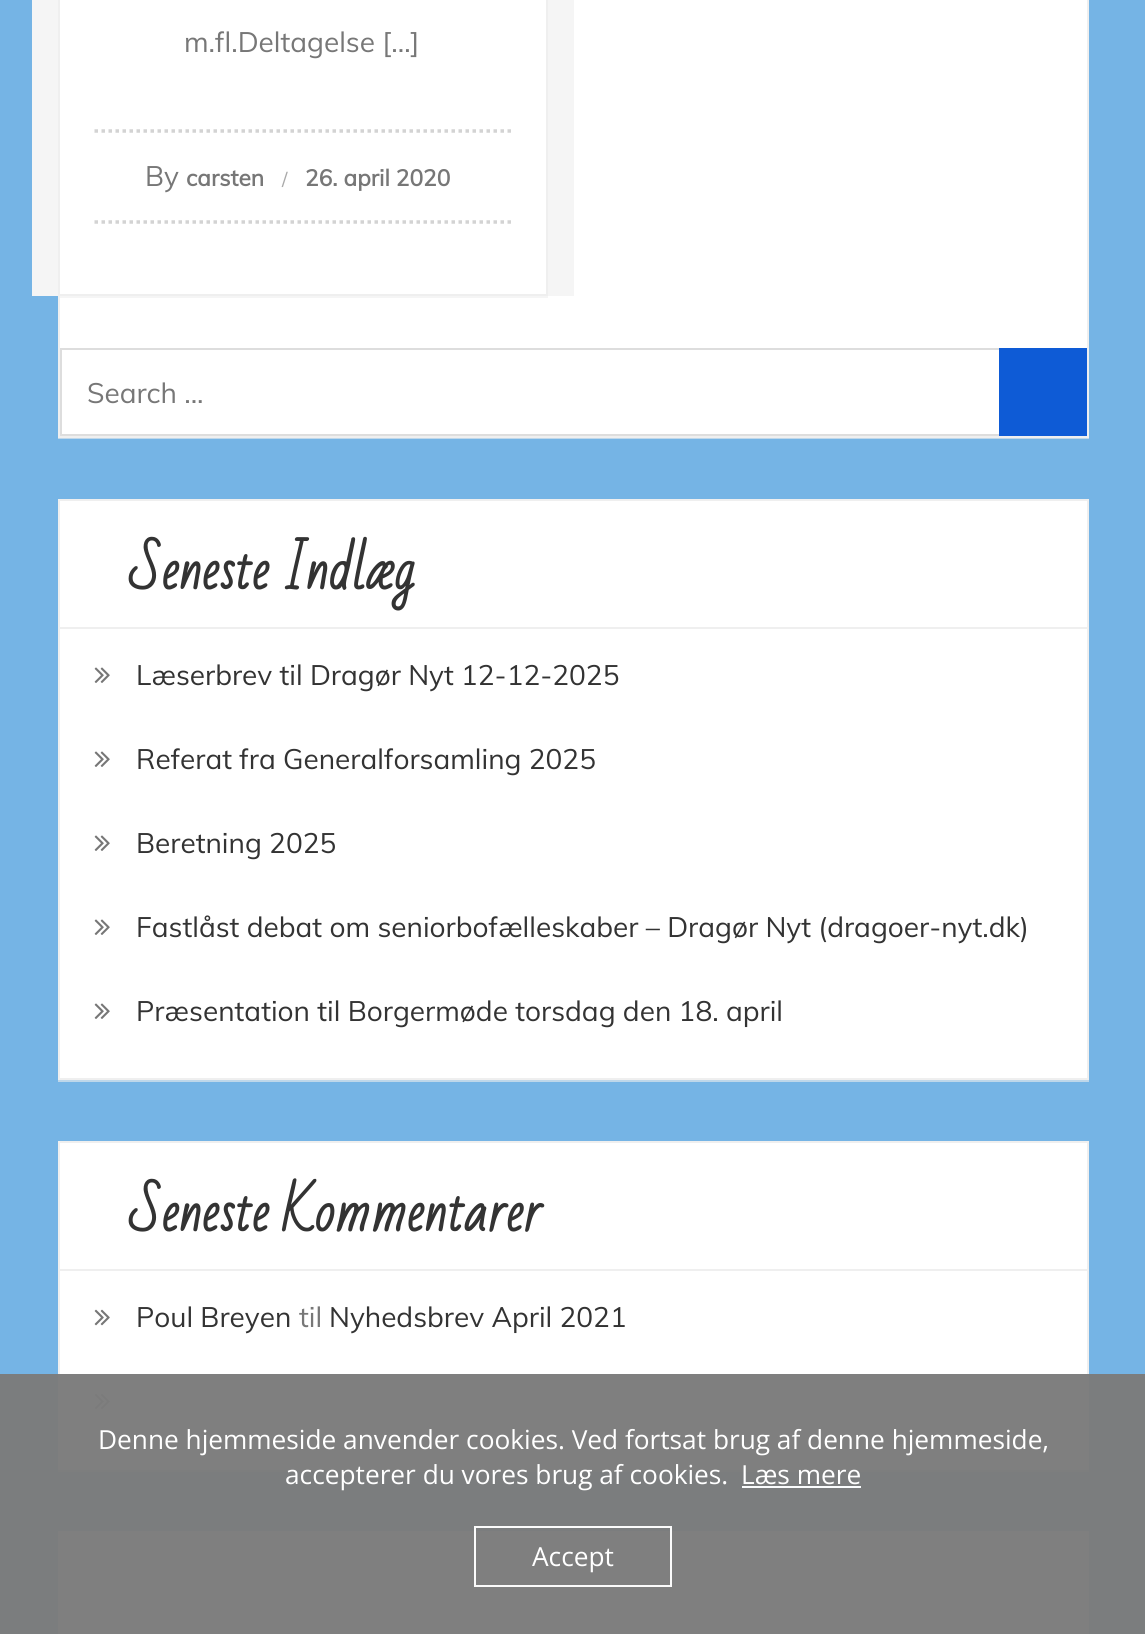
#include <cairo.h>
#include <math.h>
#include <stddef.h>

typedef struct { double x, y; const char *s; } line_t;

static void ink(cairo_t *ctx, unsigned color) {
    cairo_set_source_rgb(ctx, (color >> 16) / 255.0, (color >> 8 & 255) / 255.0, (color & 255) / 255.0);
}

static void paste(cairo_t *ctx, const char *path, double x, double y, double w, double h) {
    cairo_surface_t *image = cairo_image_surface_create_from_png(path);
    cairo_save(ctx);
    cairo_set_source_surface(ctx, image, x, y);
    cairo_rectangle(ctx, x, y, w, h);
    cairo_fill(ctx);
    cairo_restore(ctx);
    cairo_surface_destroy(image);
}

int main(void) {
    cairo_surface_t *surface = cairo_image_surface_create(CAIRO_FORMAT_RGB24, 1145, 1634);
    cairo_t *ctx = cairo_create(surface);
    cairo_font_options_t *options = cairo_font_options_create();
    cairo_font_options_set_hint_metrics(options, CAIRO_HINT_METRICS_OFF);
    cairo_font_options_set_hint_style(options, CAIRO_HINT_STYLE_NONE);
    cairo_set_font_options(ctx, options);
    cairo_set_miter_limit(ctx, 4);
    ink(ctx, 0x75B4E5);
    cairo_paint(ctx);
    ink(ctx, 0xBED7EA);
    cairo_new_path(ctx);
    cairo_move_to(ctx, 58, 438);
    cairo_line_to(ctx, 58, 439);
    cairo_line_to(ctx, 1089, 439);
    cairo_line_to(ctx, 1089, -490);
    cairo_line_to(ctx, 1088, -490);
    cairo_line_to(ctx, 1088, 438);
    cairo_close_path(ctx);
    cairo_fill(ctx);
    ink(ctx, 0xFFFFFF);
    cairo_rectangle(ctx, 60, 0, 1027, 434);
    cairo_fill(ctx);
    cairo_rectangle(ctx, 59, -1, 1029, 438);
    ink(ctx, 0xEFEFEF);
    cairo_stroke(ctx);
    ink(ctx, 0xF5F5F5);
    cairo_rectangle(ctx, 32, 0, 542, 296);
    cairo_fill(ctx);
    cairo_set_source_rgba(ctx, 0.933, 0.933, 0.933, 0.6);
    cairo_new_path(ctx);
    cairo_move_to(ctx, 58, 296);
    cairo_line_to(ctx, 58, 298);
    cairo_line_to(ctx, 548, 298);
    cairo_line_to(ctx, 548, -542);
    cairo_line_to(ctx, 548, 296);
    cairo_close_path(ctx);
    cairo_fill(ctx);
    ink(ctx, 0xFFFFFF);
    cairo_rectangle(ctx, 59, -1, 488, 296);
    cairo_fill_preserve(ctx);
    ink(ctx, 0xEFEFEF);
    cairo_stroke(ctx);
    cairo_select_font_face(ctx, "Muli", CAIRO_FONT_SLANT_NORMAL, CAIRO_FONT_WEIGHT_NORMAL);
    cairo_set_font_size(ctx, 28);
    ink(ctx, 0x777777);
    cairo_move_to(ctx, 184, 52);
    cairo_show_text(ctx, "m.fl.Deltagelse […]");
    cairo_new_path(ctx);
    cairo_move_to(ctx, 94.5, 131);
    cairo_line_to(ctx, 511, 131);
    ink(ctx, 0xD3D3D3);
    cairo_set_line_width(ctx, 3.5);
    cairo_set_dash(ctx, (double[]){3.5, 3.5}, 2, 0);
    cairo_stroke(ctx);
    cairo_new_path(ctx);
    cairo_move_to(ctx, 94.5, 222);
    cairo_line_to(ctx, 511, 222);
    cairo_stroke(ctx);
    ink(ctx, 0x777777);
    cairo_move_to(ctx, 145, 186);
    cairo_show_text(ctx, "By");
    cairo_select_font_face(ctx, "Muli", CAIRO_FONT_SLANT_NORMAL, CAIRO_FONT_WEIGHT_BOLD);
    cairo_set_font_size(ctx, 22.75);
    cairo_move_to(ctx, 186, 186);
    cairo_show_text(ctx, "carsten");
    cairo_select_font_face(ctx, "Muli", CAIRO_FONT_SLANT_NORMAL, CAIRO_FONT_WEIGHT_NORMAL);
    cairo_set_font_size(ctx, 19);
    ink(ctx, 0xAAAAAA);
    cairo_move_to(ctx, 282, 186);
    cairo_show_text(ctx, "/");
    cairo_select_font_face(ctx, "Muli", CAIRO_FONT_SLANT_NORMAL, CAIRO_FONT_WEIGHT_BOLD);
    cairo_set_font_size(ctx, 22.75);
    ink(ctx, 0x777777);
    cairo_move_to(ctx, 305, 186);
    cairo_show_text(ctx, "26. april 2020");
    cairo_rectangle(ctx, 61, 349, 1025, 86);
    ink(ctx, 0xDDDDDD);
    cairo_set_line_width(ctx, 2);
    cairo_set_dash(ctx, NULL, 0, 0);
    cairo_stroke(ctx);
    cairo_select_font_face(ctx, "Muli", CAIRO_FONT_SLANT_NORMAL, CAIRO_FONT_WEIGHT_NORMAL);
    cairo_set_font_size(ctx, 28);
    ink(ctx, 0x777777);
    cairo_move_to(ctx, 87, 403);
    cairo_show_text(ctx, "Search ...");
    ink(ctx, 0x0E5BD6);
    cairo_rectangle(ctx, 999, 348, 88, 88);
    cairo_fill(ctx);
    ink(ctx, 0xBED7EA);
    cairo_new_path(ctx);
    cairo_move_to(ctx, 58, 1080);
    cairo_line_to(ctx, 58, 1082);
    cairo_line_to(ctx, 1089, 1082);
    cairo_line_to(ctx, 1089, 501);
    cairo_line_to(ctx, 1088, 501);
    cairo_line_to(ctx, 1088, 1080);
    cairo_close_path(ctx);
    cairo_fill(ctx);
    ink(ctx, 0xFFFFFF);
    cairo_rectangle(ctx, 59, 500, 1029, 579);
    cairo_fill_preserve(ctx);
    ink(ctx, 0xEFEFEF);
    cairo_stroke(ctx);
    cairo_rectangle(ctx, 60, 627, 1027, 2);
    cairo_fill(ctx);
    cairo_select_font_face(ctx, "Bad Script", CAIRO_FONT_SLANT_NORMAL, CAIRO_FONT_WEIGHT_BOLD);
    cairo_set_font_size(ctx, 52.5);
    ink(ctx, 0x333333);
    cairo_move_to(ctx, 129, 589);
    cairo_show_text(ctx, "Seneste Indlæg");
    paste(ctx, "media/1.png", 94, 667, 16, 16);
    cairo_select_font_face(ctx, "Muli", CAIRO_FONT_SLANT_NORMAL, CAIRO_FONT_WEIGHT_NORMAL);
    cairo_set_font_size(ctx, 28);
    cairo_move_to(ctx, 136, 685);
    cairo_show_text(ctx, "Læserbrev til Dragør Nyt 12-12-2025");
    paste(ctx, "media/1.png", 94, 751, 16, 16);
    cairo_move_to(ctx, 136, 769);
    cairo_show_text(ctx, "Referat fra Generalforsamling 2025");
    paste(ctx, "media/1.png", 94, 835, 16, 16);
    cairo_move_to(ctx, 136, 853);
    cairo_show_text(ctx, "Beretning 2025");
    paste(ctx, "media/1.png", 94, 919, 16, 16);
    cairo_move_to(ctx, 136, 937);
    cairo_show_text(ctx, "Fastlåst debat om seniorbofælleskaber – Dragør Nyt (dragoer-nyt.dk)");
    paste(ctx, "media/1.png", 94, 1003, 16, 16);
    cairo_move_to(ctx, 136, 1021);
    cairo_show_text(ctx, "Præsentation til Borgermøde torsdag den 18. april");
    ink(ctx, 0xBED7EA);
    cairo_new_path(ctx);
    cairo_move_to(ctx, 58, 1470);
    cairo_line_to(ctx, 58, 1472);
    cairo_line_to(ctx, 1089, 1472);
    cairo_line_to(ctx, 1089, 1143);
    cairo_line_to(ctx, 1088, 1143);
    cairo_line_to(ctx, 1088, 1470);
    cairo_close_path(ctx);
    cairo_fill(ctx);
    ink(ctx, 0xFFFFFF);
    cairo_rectangle(ctx, 59, 1142, 1029, 327);
    cairo_fill_preserve(ctx);
    ink(ctx, 0xEFEFEF);
    cairo_stroke(ctx);
    cairo_rectangle(ctx, 60, 1269, 1027, 2);
    cairo_fill(ctx);
    cairo_select_font_face(ctx, "Bad Script", CAIRO_FONT_SLANT_NORMAL, CAIRO_FONT_WEIGHT_BOLD);
    cairo_set_font_size(ctx, 52.5);
    ink(ctx, 0x333333);
    cairo_move_to(ctx, 129, 1231);
    cairo_show_text(ctx, "Seneste Kommentarer");
    paste(ctx, "media/2.png", 94, 1309, 16, 17);
    cairo_select_font_face(ctx, "Muli", CAIRO_FONT_SLANT_NORMAL, CAIRO_FONT_WEIGHT_NORMAL);
    cairo_set_font_size(ctx, 28);
    cairo_move_to(ctx, 136, 1327);
    cairo_show_text(ctx, "Poul Breyen");
    ink(ctx, 0x777777);
    cairo_move_to(ctx, 299, 1327);
    cairo_show_text(ctx, "til");
    ink(ctx, 0x333333);
    cairo_move_to(ctx, 329, 1327);
    cairo_show_text(ctx, "Nyhedsbrev April 2021");
    paste(ctx, "media/2.png", 94, 1393, 16, 17);
    ink(ctx, 0xFFFFFF);
    cairo_rectangle(ctx, 59, 1532, 1029, 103);
    cairo_fill_preserve(ctx);
    ink(ctx, 0xEFEFEF);
    cairo_stroke(ctx);
    cairo_set_source_rgba(ctx, 0.486, 0.486, 0.486, 0.97);
    cairo_rectangle(ctx, 0, 1374, 1145, 260);
    cairo_fill(ctx);
    cairo_select_font_face(ctx, "Open Sans", CAIRO_FONT_SLANT_NORMAL, CAIRO_FONT_WEIGHT_NORMAL);
    cairo_set_font_size(ctx, 26.25);
    ink(ctx, 0xFFFFFF);
    {
        static const line_t items[] = {
            {98, 1449, "Denne hjemmeside anvender cookies. Ved fortsat brug af denne hjemmeside,"},
            {285, 1484, "accepterer du vores brug af cookies."},
            {741, 1484, "Læs mere"},
        };
        for (size_t i = 0; i < sizeof items / sizeof *items; i++) {
            cairo_move_to(ctx, items[i].x, items[i].y);
            cairo_show_text(ctx, items[i].s);
        }
    }
    ink(ctx, 0xFBFDFE);
    cairo_rectangle(ctx, 742, 1486, 119, 2);
    cairo_fill(ctx);
    cairo_rectangle(ctx, 475, 1527, 196, 59);
    cairo_set_source_rgba(ctx, 1, 1, 1, 0.97);
    cairo_stroke(ctx);
    ink(ctx, 0xFFFFFF);
    cairo_move_to(ctx, 532, 1566);
    cairo_show_text(ctx, "Accept");
    cairo_surface_write_to_png(surface, "image.png");
    cairo_font_options_destroy(options);
    cairo_destroy(ctx);
    cairo_surface_destroy(surface);
    return 0;
}
